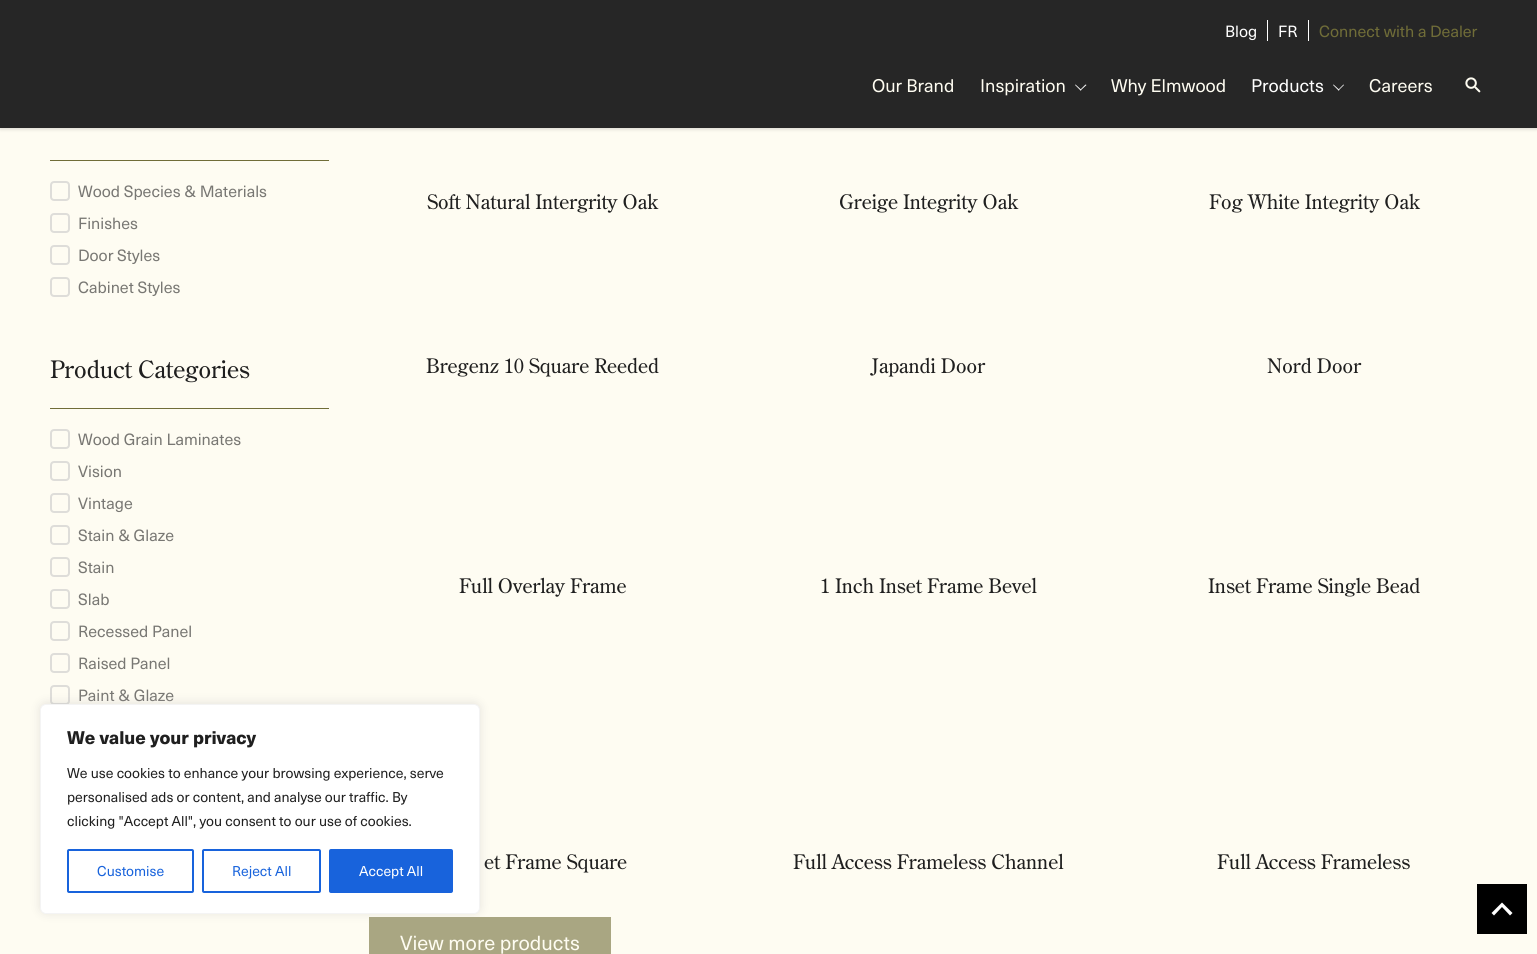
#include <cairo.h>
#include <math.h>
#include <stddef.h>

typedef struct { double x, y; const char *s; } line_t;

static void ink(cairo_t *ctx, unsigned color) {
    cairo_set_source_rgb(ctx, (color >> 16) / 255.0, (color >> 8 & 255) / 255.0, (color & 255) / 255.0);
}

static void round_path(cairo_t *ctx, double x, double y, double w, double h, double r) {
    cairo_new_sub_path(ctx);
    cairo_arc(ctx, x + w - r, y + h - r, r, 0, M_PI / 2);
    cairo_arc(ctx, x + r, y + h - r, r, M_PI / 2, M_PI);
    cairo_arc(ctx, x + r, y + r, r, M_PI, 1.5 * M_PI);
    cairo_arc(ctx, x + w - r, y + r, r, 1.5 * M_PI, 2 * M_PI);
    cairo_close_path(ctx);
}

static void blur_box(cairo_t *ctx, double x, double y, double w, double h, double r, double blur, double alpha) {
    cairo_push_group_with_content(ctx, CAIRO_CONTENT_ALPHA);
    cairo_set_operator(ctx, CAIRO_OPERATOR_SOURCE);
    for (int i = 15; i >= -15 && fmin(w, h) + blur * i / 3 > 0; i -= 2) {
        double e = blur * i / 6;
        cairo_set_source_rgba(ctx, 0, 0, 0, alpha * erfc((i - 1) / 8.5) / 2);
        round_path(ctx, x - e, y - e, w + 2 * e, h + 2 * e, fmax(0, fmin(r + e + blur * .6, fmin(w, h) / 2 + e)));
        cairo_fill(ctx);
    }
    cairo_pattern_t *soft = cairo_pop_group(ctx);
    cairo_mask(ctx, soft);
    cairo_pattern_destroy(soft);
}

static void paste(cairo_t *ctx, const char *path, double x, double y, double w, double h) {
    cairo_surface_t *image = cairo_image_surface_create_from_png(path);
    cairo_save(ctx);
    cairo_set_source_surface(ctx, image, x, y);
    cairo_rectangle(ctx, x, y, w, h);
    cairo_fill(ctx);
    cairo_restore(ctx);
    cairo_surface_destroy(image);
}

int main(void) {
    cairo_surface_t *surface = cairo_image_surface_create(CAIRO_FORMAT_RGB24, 1537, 954);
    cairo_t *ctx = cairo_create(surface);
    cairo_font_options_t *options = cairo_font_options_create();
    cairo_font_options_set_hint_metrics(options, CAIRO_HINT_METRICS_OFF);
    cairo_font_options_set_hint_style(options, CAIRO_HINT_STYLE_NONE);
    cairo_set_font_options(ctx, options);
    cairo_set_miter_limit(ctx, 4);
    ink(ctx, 0xFEFCF2);
    cairo_paint(ctx);
    ink(ctx, 0x000000);
    blur_box(ctx, 0, 1, 1537, 128, 0, 2, 0.16);
    ink(ctx, 0x262626);
    cairo_rectangle(ctx, 0, 0, 1537, 128);
    cairo_fill(ctx);
    cairo_select_font_face(ctx, "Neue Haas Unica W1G", CAIRO_FONT_SLANT_NORMAL, CAIRO_FONT_WEIGHT_NORMAL);
    cairo_set_font_size(ctx, 16);
    ink(ctx, 0xFFFFFF);
    cairo_move_to(ctx, 1225, 37);
    cairo_show_text(ctx, "Blog");
    cairo_rectangle(ctx, 1267, 20, 1, 21);
    cairo_fill(ctx);
    cairo_move_to(ctx, 1278, 37);
    cairo_show_text(ctx, "FR");
    cairo_rectangle(ctx, 1308, 20, 1, 21);
    cairo_fill(ctx);
    ink(ctx, 0x706D38);
    cairo_move_to(ctx, 1319, 37);
    cairo_show_text(ctx, "Connect with a Dealer");
    cairo_set_font_size(ctx, 18);
    ink(ctx, 0xFEFCF1);
    cairo_move_to(ctx, 872, 92);
    cairo_show_text(ctx, "Our Brand");
    cairo_move_to(ctx, 980, 92);
    cairo_show_text(ctx, "Inspiration");
    ink(ctx, 0xFFFFFF);
    cairo_new_path(ctx);
    cairo_move_to(ctx, 1085.5, 84.5);
    cairo_line_to(ctx, 1086.5, 85);
    cairo_line_to(ctx, 1080.5, 90.5);
    cairo_line_to(ctx, 1080, 90);
    cairo_close_path(ctx);
    cairo_fill(ctx);
    cairo_new_path(ctx);
    cairo_move_to(ctx, 1075.5, 84.5);
    cairo_line_to(ctx, 1081.5, 90);
    cairo_line_to(ctx, 1080.5, 90.5);
    cairo_line_to(ctx, 1075, 85);
    cairo_close_path(ctx);
    cairo_fill(ctx);
    ink(ctx, 0xFEFCF1);
    cairo_move_to(ctx, 1111, 92);
    cairo_show_text(ctx, "Why Elmwood");
    ink(ctx, 0xFFFFFF);
    cairo_move_to(ctx, 1251, 92);
    cairo_show_text(ctx, "Products");
    cairo_new_path(ctx);
    cairo_move_to(ctx, 1343.5, 84.5);
    cairo_line_to(ctx, 1344, 85);
    cairo_line_to(ctx, 1338.5, 90.5);
    cairo_line_to(ctx, 1338, 90);
    cairo_close_path(ctx);
    cairo_fill(ctx);
    cairo_new_path(ctx);
    cairo_move_to(ctx, 1333.5, 84.5);
    cairo_line_to(ctx, 1339.5, 90);
    cairo_line_to(ctx, 1338.5, 90.5);
    cairo_line_to(ctx, 1333, 85);
    cairo_close_path(ctx);
    cairo_fill(ctx);
    ink(ctx, 0xFEFCF1);
    cairo_move_to(ctx, 1369, 92);
    cairo_show_text(ctx, "Careers");
    paste(ctx, "media/1.png", 1465, 77, 16, 16);
    ink(ctx, 0x706D38);
    cairo_rectangle(ctx, 50, 160, 279, 1);
    cairo_fill(ctx);
    round_path(ctx, 51, 182, 18, 18, 3);
    ink(ctx, 0xDEDDD9);
    cairo_stroke(ctx);
    cairo_set_font_size(ctx, 16);
    ink(ctx, 0x787773);
    cairo_move_to(ctx, 78, 197);
    cairo_show_text(ctx, "Wood Species & Materials");
    round_path(ctx, 51, 214, 18, 18, 3);
    ink(ctx, 0xDEDDD9);
    cairo_stroke(ctx);
    ink(ctx, 0x787773);
    cairo_move_to(ctx, 78, 229);
    cairo_show_text(ctx, "Finishes");
    round_path(ctx, 51, 246, 18, 18, 3);
    ink(ctx, 0xDEDDD9);
    cairo_stroke(ctx);
    ink(ctx, 0x787773);
    cairo_move_to(ctx, 78, 261);
    cairo_show_text(ctx, "Door Styles");
    round_path(ctx, 51, 278, 18, 18, 3);
    ink(ctx, 0xDEDDD9);
    cairo_stroke(ctx);
    ink(ctx, 0x787773);
    cairo_move_to(ctx, 78, 293);
    cairo_show_text(ctx, "Cabinet Styles");
    cairo_select_font_face(ctx, "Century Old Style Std", CAIRO_FONT_SLANT_NORMAL, CAIRO_FONT_WEIGHT_NORMAL);
    cairo_set_font_size(ctx, 24);
    ink(ctx, 0x1F1F1F);
    cairo_move_to(ctx, 50, 378);
    cairo_show_text(ctx, "Product Categories");
    ink(ctx, 0x706D38);
    cairo_rectangle(ctx, 50, 408, 279, 1);
    cairo_fill(ctx);
    round_path(ctx, 51, 430, 18, 18, 3);
    ink(ctx, 0xDEDDD9);
    cairo_stroke(ctx);
    cairo_select_font_face(ctx, "Neue Haas Unica W1G", CAIRO_FONT_SLANT_NORMAL, CAIRO_FONT_WEIGHT_NORMAL);
    cairo_set_font_size(ctx, 16);
    ink(ctx, 0x787773);
    cairo_move_to(ctx, 78, 445);
    cairo_show_text(ctx, "Wood Grain Laminates");
    round_path(ctx, 51, 462, 18, 18, 3);
    ink(ctx, 0xDEDDD9);
    cairo_stroke(ctx);
    ink(ctx, 0x787773);
    cairo_move_to(ctx, 78, 477);
    cairo_show_text(ctx, "Vision");
    round_path(ctx, 51, 494, 18, 18, 3);
    ink(ctx, 0xDEDDD9);
    cairo_stroke(ctx);
    ink(ctx, 0x787773);
    cairo_move_to(ctx, 78, 509);
    cairo_show_text(ctx, "Vintage");
    round_path(ctx, 51, 526, 18, 18, 3);
    ink(ctx, 0xDEDDD9);
    cairo_stroke(ctx);
    ink(ctx, 0x787773);
    cairo_move_to(ctx, 78, 541);
    cairo_show_text(ctx, "Stain & Glaze");
    round_path(ctx, 51, 558, 18, 18, 3);
    ink(ctx, 0xDEDDD9);
    cairo_stroke(ctx);
    ink(ctx, 0x787773);
    cairo_move_to(ctx, 78, 573);
    cairo_show_text(ctx, "Stain");
    round_path(ctx, 51, 590, 18, 18, 3);
    ink(ctx, 0xDEDDD9);
    cairo_stroke(ctx);
    ink(ctx, 0x787773);
    cairo_move_to(ctx, 78, 605);
    cairo_show_text(ctx, "Slab");
    round_path(ctx, 51, 622, 18, 18, 3);
    ink(ctx, 0xDEDDD9);
    cairo_stroke(ctx);
    ink(ctx, 0x787773);
    cairo_move_to(ctx, 78, 637);
    cairo_show_text(ctx, "Recessed Panel");
    round_path(ctx, 51, 654, 18, 18, 3);
    ink(ctx, 0xDEDDD9);
    cairo_stroke(ctx);
    ink(ctx, 0x787773);
    cairo_move_to(ctx, 78, 669);
    cairo_show_text(ctx, "Raised Panel");
    round_path(ctx, 51, 686, 18, 18, 3);
    ink(ctx, 0xDEDDD9);
    cairo_stroke(ctx);
    ink(ctx, 0x787773);
    cairo_move_to(ctx, 78, 701);
    cairo_show_text(ctx, "Paint & Glaze");
    cairo_select_font_face(ctx, "Century Old Style Std", CAIRO_FONT_SLANT_NORMAL, CAIRO_FONT_WEIGHT_NORMAL);
    cairo_set_font_size(ctx, 20);
    ink(ctx, 0x1F1F1F);
    {
        static const line_t items[] = {
            {427, 209, "Soft Natural Intergrity Oak"},
            {839, 209, "Greige Integrity Oak"},
            {1209, 209, "Fog White Integrity Oak"},
            {426, 373, "Bregenz 10 Square Reeded"},
            {871, 373, "Japandi Door"},
            {1267, 373, "Nord Door"},
            {459, 593, "Full Overlay Frame"},
            {820, 593, "1 Inch Inset Frame Bevel"},
            {1208, 593, "Inset Frame Single Bead"},
            {484, 869, "et Frame Square"},
            {793, 869, "Full Access Frameless Channel"},
            {1217, 869, "Full Access Frameless"},
        };
        for (size_t i = 0; i < sizeof items / sizeof *items; i++) {
            cairo_move_to(ctx, items[i].x, items[i].y);
            cairo_show_text(ctx, items[i].s);
        }
    }
    ink(ctx, 0xA9A682);
    cairo_rectangle(ctx, 369, 917, 242, 37);
    cairo_fill(ctx);
    cairo_select_font_face(ctx, "Neue Haas Unica W1G", CAIRO_FONT_SLANT_NORMAL, CAIRO_FONT_WEIGHT_NORMAL);
    ink(ctx, 0xFEFCF1);
    cairo_move_to(ctx, 400, 950);
    cairo_show_text(ctx, "View more products");
    ink(ctx, 0xACABAB);
    blur_box(ctx, 40, 703, 440, 210, 6, 5, 0.3);
    ink(ctx, 0xFFFFFF);
    round_path(ctx, 40.5, 704.5, 439, 209, 5.5);
    cairo_fill_preserve(ctx);
    ink(ctx, 0xF4F4F4);
    cairo_set_line_width(ctx, 1);
    cairo_stroke(ctx);
    cairo_select_font_face(ctx, "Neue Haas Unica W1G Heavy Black", CAIRO_FONT_SLANT_NORMAL, CAIRO_FONT_WEIGHT_NORMAL);
    cairo_set_font_size(ctx, 18);
    ink(ctx, 0x1F1F1F);
    cairo_move_to(ctx, 67, 744);
    cairo_show_text(ctx, "We value your privacy");
    cairo_select_font_face(ctx, "Neue Haas Unica W1G", CAIRO_FONT_SLANT_NORMAL, CAIRO_FONT_WEIGHT_NORMAL);
    cairo_set_font_size(ctx, 14);
    {
        static const line_t items[] = {
            {67, 778, "We use cookies to enhance your browsing experience, serve"},
            {67, 802, "personalised ads or content, and analyse our traffic. By"},
            {67, 826, "clicking \"Accept All\", you consent to our use of cookies."},
        };
        for (size_t i = 0; i < sizeof items / sizeof *items; i++) {
            cairo_move_to(ctx, items[i].x, items[i].y);
            cairo_show_text(ctx, items[i].s);
        }
    }
    round_path(ctx, 68, 850, 125, 42, 1);
    ink(ctx, 0x1863DC);
    cairo_set_line_width(ctx, 2);
    cairo_stroke(ctx);
    cairo_move_to(ctx, 97, 876);
    cairo_show_text(ctx, "Customise");
    round_path(ctx, 203, 850, 117, 42, 1);
    cairo_stroke(ctx);
    cairo_move_to(ctx, 232, 876);
    cairo_show_text(ctx, "Reject All");
    round_path(ctx, 330, 850, 122, 42, 1);
    cairo_fill_preserve(ctx);
    cairo_stroke(ctx);
    ink(ctx, 0xFFFFFF);
    cairo_move_to(ctx, 359, 876);
    cairo_show_text(ctx, "Accept All");
    ink(ctx, 0x000000);
    cairo_rectangle(ctx, 1477, 884, 50, 50);
    cairo_fill(ctx);
    ink(ctx, 0xFFFFFF);
    cairo_new_path(ctx);
    cairo_move_to(ctx, 1502, 907);
    cairo_line_to(ctx, 1494, 915.5);
    cairo_line_to(ctx, 1491.5, 913);
    cairo_line_to(ctx, 1502, 902.5);
    cairo_line_to(ctx, 1512.5, 913);
    cairo_line_to(ctx, 1510, 915.5);
    cairo_close_path(ctx);
    cairo_fill(ctx);
    cairo_surface_write_to_png(surface, "image.png");
    cairo_font_options_destroy(options);
    cairo_destroy(ctx);
    cairo_surface_destroy(surface);
    return 0;
}
